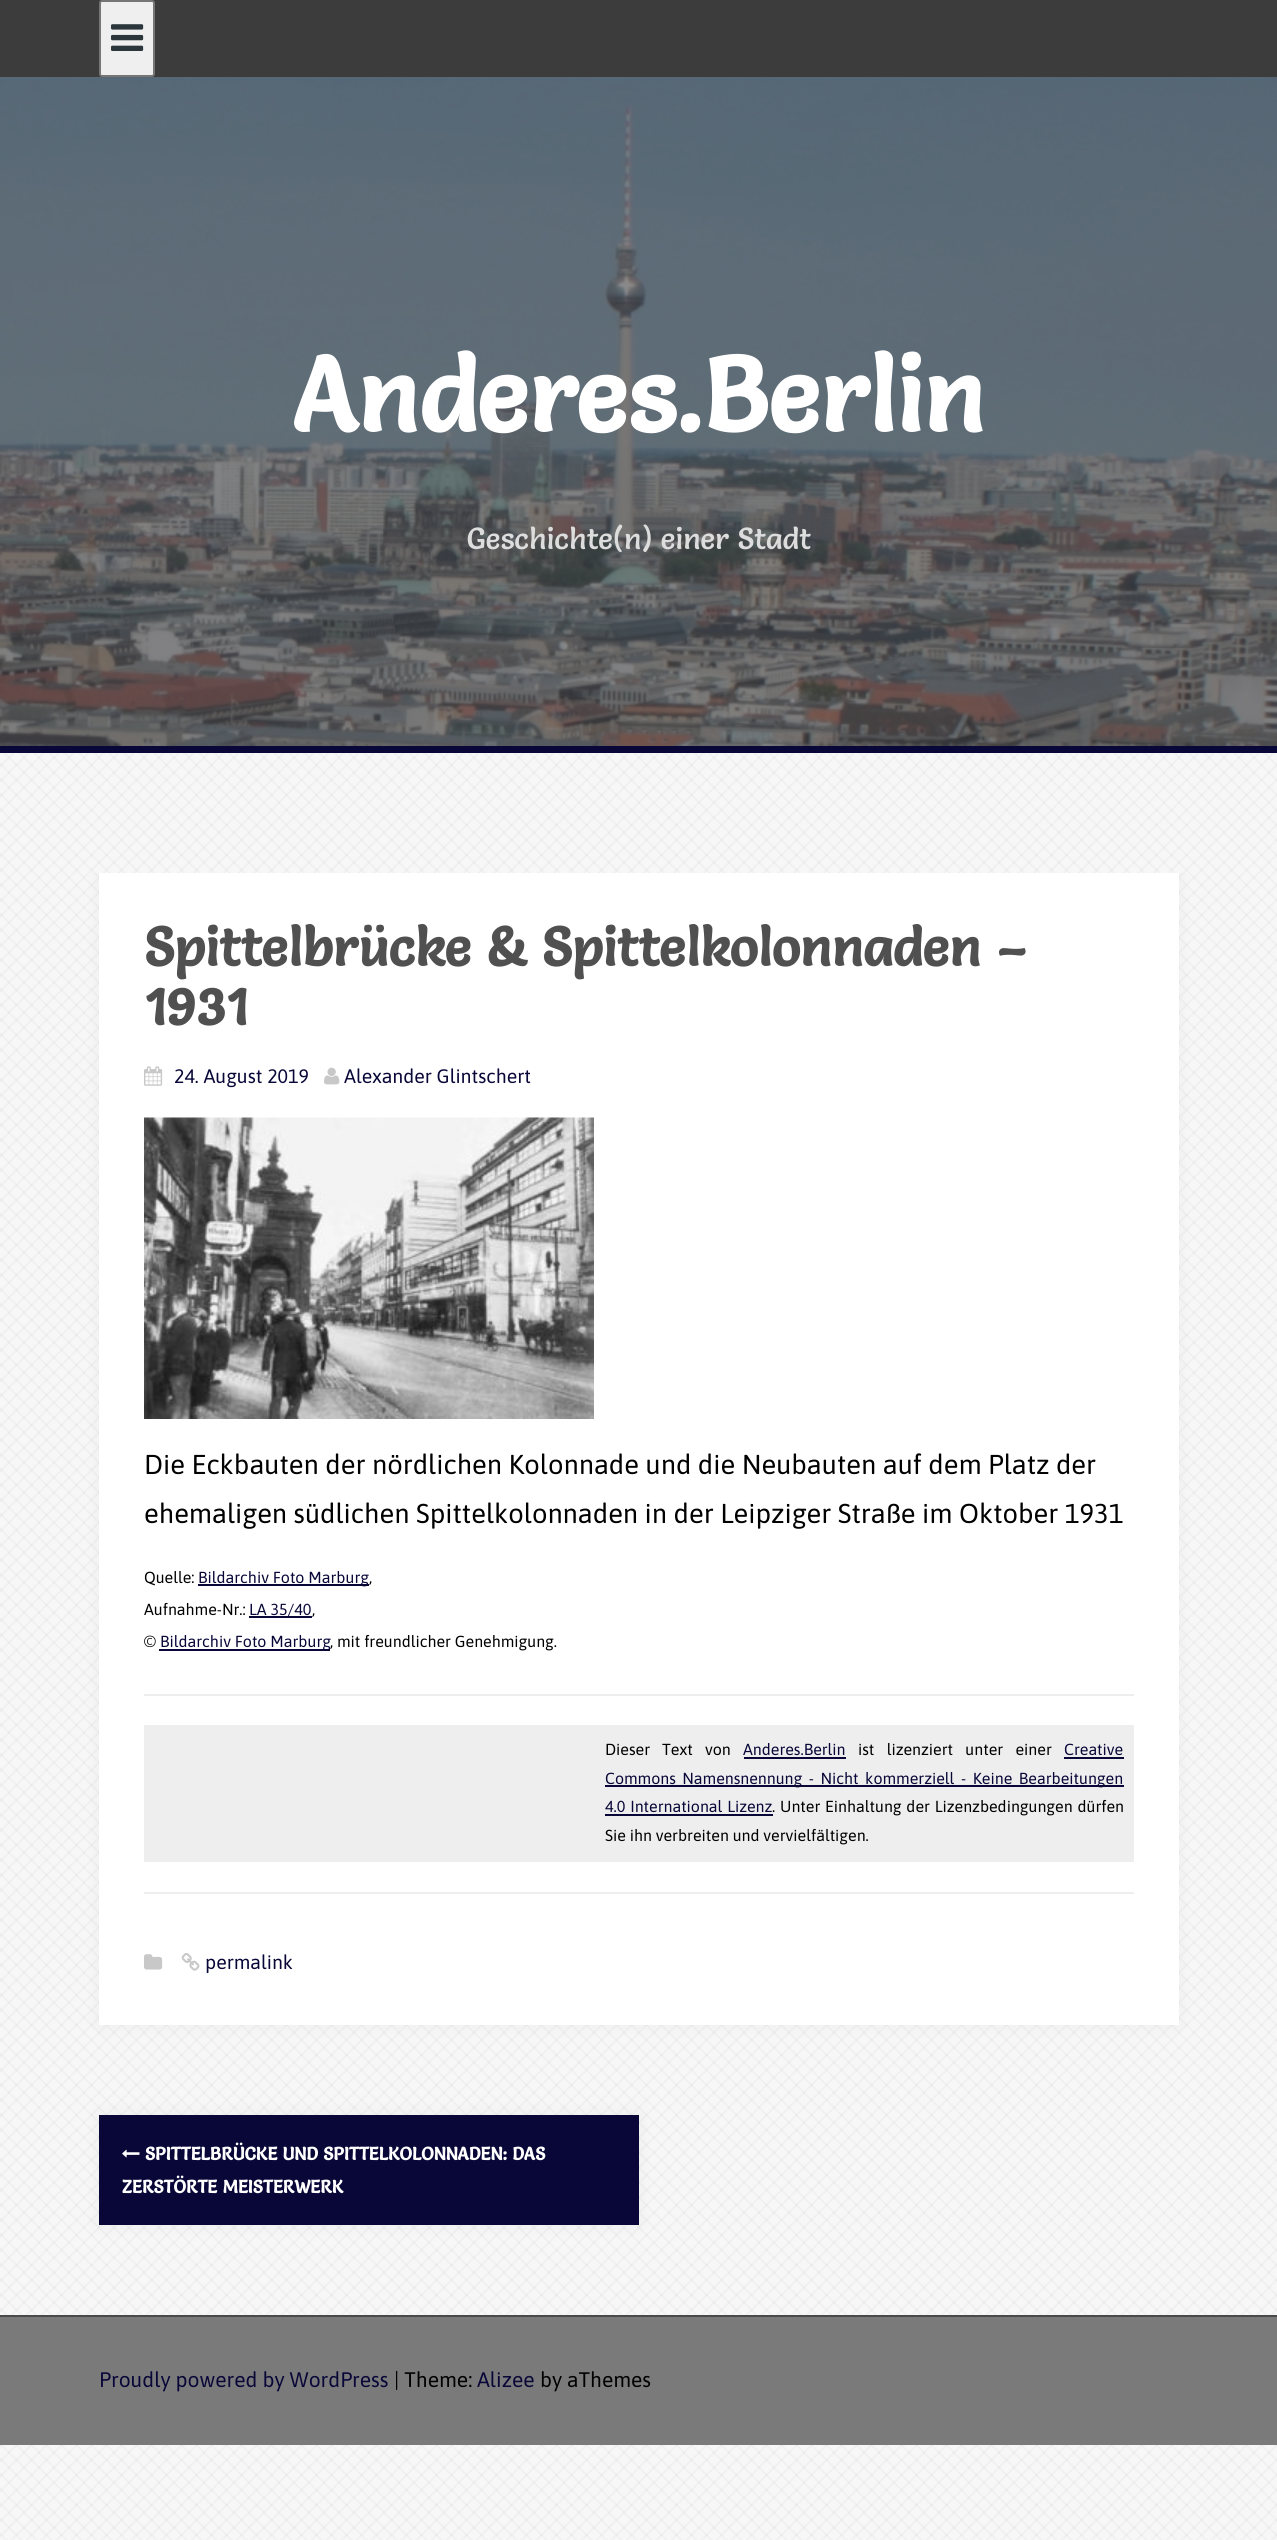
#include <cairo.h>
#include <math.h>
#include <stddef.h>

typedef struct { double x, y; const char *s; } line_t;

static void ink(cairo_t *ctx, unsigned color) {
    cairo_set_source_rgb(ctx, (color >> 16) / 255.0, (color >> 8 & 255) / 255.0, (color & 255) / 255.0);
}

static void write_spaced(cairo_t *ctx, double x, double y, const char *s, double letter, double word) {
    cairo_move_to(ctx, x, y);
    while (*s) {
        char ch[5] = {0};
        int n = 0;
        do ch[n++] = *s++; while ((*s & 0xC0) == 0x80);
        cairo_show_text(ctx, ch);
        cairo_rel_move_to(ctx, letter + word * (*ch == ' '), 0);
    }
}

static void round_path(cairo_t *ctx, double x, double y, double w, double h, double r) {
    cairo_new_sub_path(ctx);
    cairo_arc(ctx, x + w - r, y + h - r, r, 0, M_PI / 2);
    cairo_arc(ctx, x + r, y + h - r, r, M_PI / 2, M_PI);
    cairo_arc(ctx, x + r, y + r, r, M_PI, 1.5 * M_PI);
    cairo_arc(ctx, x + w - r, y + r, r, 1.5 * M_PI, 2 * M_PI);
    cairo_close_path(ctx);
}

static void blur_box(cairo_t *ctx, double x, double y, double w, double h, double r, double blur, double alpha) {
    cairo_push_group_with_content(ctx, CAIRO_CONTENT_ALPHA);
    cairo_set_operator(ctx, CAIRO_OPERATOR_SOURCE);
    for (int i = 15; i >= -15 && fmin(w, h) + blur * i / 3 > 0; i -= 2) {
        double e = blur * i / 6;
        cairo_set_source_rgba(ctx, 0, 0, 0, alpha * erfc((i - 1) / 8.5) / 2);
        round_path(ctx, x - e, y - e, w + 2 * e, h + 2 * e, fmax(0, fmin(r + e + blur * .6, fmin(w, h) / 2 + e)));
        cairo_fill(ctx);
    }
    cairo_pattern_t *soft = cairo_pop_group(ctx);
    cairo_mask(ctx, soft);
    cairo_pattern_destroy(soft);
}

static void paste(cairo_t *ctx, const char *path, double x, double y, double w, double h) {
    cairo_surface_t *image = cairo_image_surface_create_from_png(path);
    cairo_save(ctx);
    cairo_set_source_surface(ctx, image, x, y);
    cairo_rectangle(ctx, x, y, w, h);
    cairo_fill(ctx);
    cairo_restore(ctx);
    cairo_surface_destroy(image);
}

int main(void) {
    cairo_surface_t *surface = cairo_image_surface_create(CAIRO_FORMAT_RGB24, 1277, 2540);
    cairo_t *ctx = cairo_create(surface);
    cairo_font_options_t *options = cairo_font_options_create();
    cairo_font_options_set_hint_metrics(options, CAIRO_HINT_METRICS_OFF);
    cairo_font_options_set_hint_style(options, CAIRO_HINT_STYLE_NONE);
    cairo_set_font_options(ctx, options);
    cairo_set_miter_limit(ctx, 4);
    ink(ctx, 0xF7F7F7);
    cairo_paint(ctx);
    paste(ctx, "media/1.png", 0, 753, 1277, 1787);
    ink(ctx, 0x3C3C3C);
    cairo_rectangle(ctx, 0, 0, 1277, 746);
    cairo_fill(ctx);
    ink(ctx, 0x080738);
    cairo_rectangle(ctx, 0, 746, 1277, 7);
    cairo_fill(ctx);
    ink(ctx, 0xEFEFEF);
    round_path(ctx, 100, 1, 54, 75, 2);
    cairo_fill_preserve(ctx);
    ink(ctx, 0x767676);
    cairo_stroke(ctx);
    paste(ctx, "media/2.png", 111, 24, 33, 27);
    paste(ctx, "media/3.png", 0, 77, 1277, 669);
    cairo_select_font_face(ctx, "Salsa", CAIRO_FONT_SLANT_NORMAL, CAIRO_FONT_WEIGHT_BOLD);
    cairo_set_font_size(ctx, 105);
    ink(ctx, 0xFFFFFF);
    cairo_move_to(ctx, 293, 432);
    cairo_show_text(ctx, "Anderes.Berlin");
    cairo_select_font_face(ctx, "Salsa", CAIRO_FONT_SLANT_NORMAL, CAIRO_FONT_WEIGHT_NORMAL);
    cairo_set_font_size(ctx, 30);
    ink(ctx, 0xDDDDDD);
    cairo_move_to(ctx, 467, 549);
    cairo_show_text(ctx, "Geschichte(n) einer Stadt");
    cairo_save(ctx);
    cairo_rectangle(ctx, 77, 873, 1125, 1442);
    cairo_clip(ctx);
    ink(ctx, 0x828E94);
    blur_box(ctx, 99, 873, 1080, 1152, 0, 7.5, 0.1);
    cairo_restore(ctx);
    ink(ctx, 0xFFFFFF);
    cairo_rectangle(ctx, 99, 873, 1080, 1152);
    cairo_fill(ctx);
    cairo_select_font_face(ctx, "Salsa", CAIRO_FONT_SLANT_NORMAL, CAIRO_FONT_WEIGHT_BOLD);
    cairo_set_font_size(ctx, 54);
    ink(ctx, 0x505050);
    cairo_move_to(ctx, 144, 966);
    cairo_show_text(ctx, "Spittelbrücke & Spittelkolonnaden –");
    cairo_move_to(ctx, 144, 1025);
    cairo_show_text(ctx, "1931");
    paste(ctx, "media/4.png", 144, 1066, 19, 20);
    cairo_select_font_face(ctx, "Asap", CAIRO_FONT_SLANT_NORMAL, CAIRO_FONT_WEIGHT_NORMAL);
    cairo_set_font_size(ctx, 19.5);
    ink(ctx, 0x080738);
    cairo_move_to(ctx, 174, 1083);
    cairo_show_text(ctx, "24. August 2019");
    paste(ctx, "media/5.png", 324, 1067, 16, 18);
    cairo_move_to(ctx, 344, 1083);
    cairo_show_text(ctx, "Alexander Glintschert");
    paste(ctx, "media/6.png", 144, 1117, 450, 302);
    cairo_set_font_size(ctx, 27.3);
    ink(ctx, 0x000000);
    cairo_move_to(ctx, 144, 1474);
    cairo_show_text(ctx, "Die Eckbauten der nördlichen Kolonnade und die Neubauten auf dem Platz der");
    cairo_move_to(ctx, 144, 1523);
    cairo_show_text(ctx, "ehemaligen südlichen Spittelkolonnaden in der Leipziger Straße im Oktober 1931");
    cairo_set_font_size(ctx, 16);
    cairo_move_to(ctx, 144, 1583);
    cairo_show_text(ctx, "Quelle:");
    ink(ctx, 0x080738);
    cairo_rectangle(ctx, 198, 1584, 171, 2);
    cairo_fill(ctx);
    cairo_move_to(ctx, 198, 1583);
    cairo_show_text(ctx, "Bildarchiv Foto Marburg");
    ink(ctx, 0x000000);
    cairo_move_to(ctx, 369, 1583);
    cairo_show_text(ctx, ",");
    cairo_move_to(ctx, 144, 1615);
    cairo_show_text(ctx, "Aufnahme-Nr.:");
    ink(ctx, 0x080738);
    cairo_rectangle(ctx, 249, 1616, 63, 2);
    cairo_fill(ctx);
    cairo_move_to(ctx, 249, 1615);
    cairo_show_text(ctx, "LA 35/40");
    ink(ctx, 0x000000);
    cairo_move_to(ctx, 312, 1615);
    cairo_show_text(ctx, ",");
    cairo_move_to(ctx, 144, 1647);
    cairo_show_text(ctx, "©");
    ink(ctx, 0x080738);
    cairo_rectangle(ctx, 159, 1649, 171, 2);
    cairo_fill(ctx);
    cairo_move_to(ctx, 160, 1647);
    cairo_show_text(ctx, "Bildarchiv Foto Marburg");
    ink(ctx, 0x000000);
    cairo_move_to(ctx, 330, 1647);
    cairo_show_text(ctx, ", mit freundlicher Genehmigung.");
    ink(ctx, 0xEEEEEE);
    cairo_rectangle(ctx, 144, 1694, 990, 2);
    cairo_fill(ctx);
    cairo_rectangle(ctx, 144, 1725, 990, 137);
    cairo_fill(ctx);
    ink(ctx, 0x000000);
    {
        static const line_t items[] = {
            {605, 1755, "Dieser"},
            {662, 1755, "Text"},
            {705, 1755, "von"},
        };
        for (size_t i = 0; i < sizeof items / sizeof *items; i++) {
            cairo_move_to(ctx, items[i].x, items[i].y);
            cairo_show_text(ctx, items[i].s);
        }
    }
    ink(ctx, 0x080738);
    cairo_move_to(ctx, 743, 1755);
    cairo_show_text(ctx, "Anderes.Berlin");
    cairo_rectangle(ctx, 744, 1757, 102, 2);
    cairo_fill(ctx);
    ink(ctx, 0x000000);
    write_spaced(ctx, 858, 1755, "ist lizenziert unter einer", 0, 8.5);
    ink(ctx, 0x080738);
    cairo_move_to(ctx, 1064, 1755);
    cairo_show_text(ctx, "Creative");
    cairo_rectangle(ctx, 1064, 1757, 60, 2);
    cairo_fill(ctx);
    cairo_rectangle(ctx, 605, 1785, 519, 2);
    cairo_fill(ctx);
    write_spaced(ctx, 605, 1784, "Commons Namensnennung - Nicht kommerziell - Keine Bearbeitungen", 0, 2.75);
    write_spaced(ctx, 605, 1812, "4.0 International Lizenz", 0, 1);
    cairo_rectangle(ctx, 605, 1814, 168, 2);
    cairo_fill(ctx);
    ink(ctx, 0x000000);
    write_spaced(ctx, 772, 1812, ". Unter Einhaltung der Lizenzbedingungen dürfen", 0, 1);
    cairo_move_to(ctx, 605, 1841);
    cairo_show_text(ctx, "Sie ihn verbreiten und vervielfältigen.");
    ink(ctx, 0xEEEEEE);
    cairo_rectangle(ctx, 144, 1892, 990, 2);
    cairo_fill(ctx);
    paste(ctx, "media/7.png", 144, 1954, 19, 16);
    paste(ctx, "media/8.png", 181, 1953, 19, 18);
    cairo_set_font_size(ctx, 19.5);
    ink(ctx, 0x080738);
    cairo_move_to(ctx, 205, 1969);
    cairo_show_text(ctx, "permalink");
    ink(ctx, 0x828E94);
    blur_box(ctx, 99, 2115, 540, 110, 0, 7.5, 0.1);
    ink(ctx, 0x080738);
    cairo_rectangle(ctx, 99, 2115, 540, 110);
    cairo_fill(ctx);
    paste(ctx, "media/9.png", 122, 2149, 18, 9);
    cairo_select_font_face(ctx, "Salsa", CAIRO_FONT_SLANT_NORMAL, CAIRO_FONT_WEIGHT_BOLD);
    cairo_set_font_size(ctx, 18);
    ink(ctx, 0xFFFFFF);
    cairo_move_to(ctx, 145, 2160);
    cairo_show_text(ctx, "SPITTELBRÜCKE UND SPITTELKOLONNADEN: DAS");
    cairo_move_to(ctx, 122, 2193);
    cairo_show_text(ctx, "ZERSTÖRTE MEISTERWERK");
    ink(ctx, 0x7A7A7A);
    cairo_rectangle(ctx, 0, 2317, 1277, 128);
    cairo_fill(ctx);
    ink(ctx, 0x494949);
    cairo_rectangle(ctx, 0, 2315, 1277, 2);
    cairo_fill(ctx);
    cairo_select_font_face(ctx, "Asap", CAIRO_FONT_SLANT_NORMAL, CAIRO_FONT_WEIGHT_NORMAL);
    cairo_set_font_size(ctx, 21);
    ink(ctx, 0x080738);
    cairo_move_to(ctx, 99, 2387);
    cairo_show_text(ctx, "Proudly powered by WordPress");
    ink(ctx, 0x000000);
    cairo_move_to(ctx, 394, 2387);
    cairo_show_text(ctx, "| Theme:");
    ink(ctx, 0x080738);
    cairo_move_to(ctx, 477, 2387);
    cairo_show_text(ctx, "Alizee");
    ink(ctx, 0x000000);
    cairo_move_to(ctx, 540, 2387);
    cairo_show_text(ctx, "by aThemes");
    cairo_surface_write_to_png(surface, "image.png");
    cairo_font_options_destroy(options);
    cairo_destroy(ctx);
    cairo_surface_destroy(surface);
    return 0;
}
